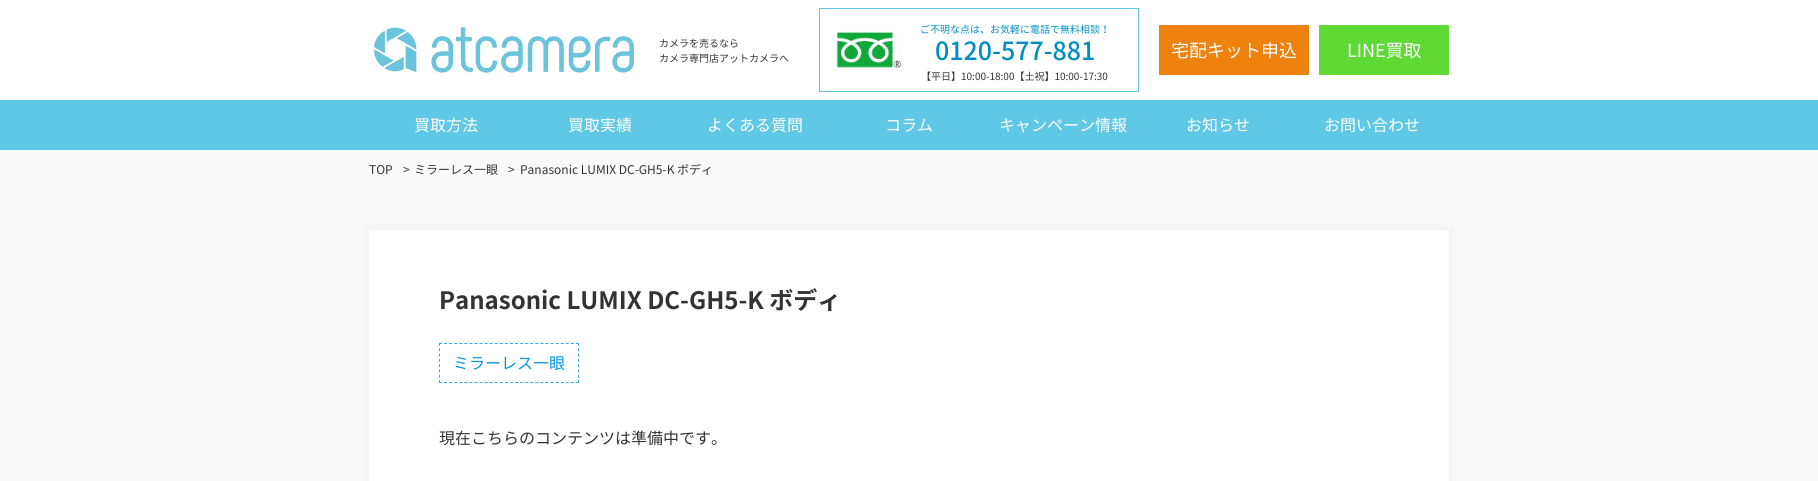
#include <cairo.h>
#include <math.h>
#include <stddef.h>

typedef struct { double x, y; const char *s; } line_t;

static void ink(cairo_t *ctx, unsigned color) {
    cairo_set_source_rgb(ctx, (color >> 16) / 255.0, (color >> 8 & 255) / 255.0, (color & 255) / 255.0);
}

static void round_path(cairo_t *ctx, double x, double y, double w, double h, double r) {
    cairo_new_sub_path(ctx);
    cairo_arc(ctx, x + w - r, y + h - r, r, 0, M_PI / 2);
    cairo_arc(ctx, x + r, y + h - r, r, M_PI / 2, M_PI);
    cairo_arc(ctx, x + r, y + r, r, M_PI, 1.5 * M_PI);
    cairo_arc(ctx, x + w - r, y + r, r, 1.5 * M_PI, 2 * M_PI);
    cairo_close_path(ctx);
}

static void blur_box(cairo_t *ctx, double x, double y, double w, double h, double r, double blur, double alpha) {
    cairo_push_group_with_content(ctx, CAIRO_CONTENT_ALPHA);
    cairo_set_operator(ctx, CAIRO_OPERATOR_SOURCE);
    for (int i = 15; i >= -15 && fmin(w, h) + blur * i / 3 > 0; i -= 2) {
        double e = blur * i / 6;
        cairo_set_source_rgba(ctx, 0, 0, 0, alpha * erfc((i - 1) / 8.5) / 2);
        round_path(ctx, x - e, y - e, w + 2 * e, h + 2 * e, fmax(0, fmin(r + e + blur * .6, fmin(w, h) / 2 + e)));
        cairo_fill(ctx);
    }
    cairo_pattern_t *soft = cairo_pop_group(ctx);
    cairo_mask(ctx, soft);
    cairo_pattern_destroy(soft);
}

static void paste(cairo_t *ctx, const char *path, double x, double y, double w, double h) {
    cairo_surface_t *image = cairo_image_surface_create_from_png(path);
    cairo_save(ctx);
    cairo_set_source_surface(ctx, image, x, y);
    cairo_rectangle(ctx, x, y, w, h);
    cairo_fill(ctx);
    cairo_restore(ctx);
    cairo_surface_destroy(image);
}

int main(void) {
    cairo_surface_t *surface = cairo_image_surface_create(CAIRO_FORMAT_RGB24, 1818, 481);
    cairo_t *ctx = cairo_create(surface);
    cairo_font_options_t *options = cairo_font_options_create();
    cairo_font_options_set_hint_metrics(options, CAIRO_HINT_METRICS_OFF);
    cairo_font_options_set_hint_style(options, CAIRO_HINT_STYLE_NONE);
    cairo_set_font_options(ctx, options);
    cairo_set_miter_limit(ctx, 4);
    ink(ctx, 0xFAFAFA);
    cairo_paint(ctx);
    ink(ctx, 0xFFFFFF);
    cairo_rectangle(ctx, 0, 0, 1818, 100);
    cairo_fill(ctx);
    paste(ctx, "media/1.png", 374, 27, 260, 46);
    cairo_select_font_face(ctx, "Noto Sans JP", CAIRO_FONT_SLANT_NORMAL, CAIRO_FONT_WEIGHT_NORMAL);
    cairo_set_font_size(ctx, 10);
    ink(ctx, 0x333333);
    cairo_move_to(ctx, 659, 47);
    cairo_show_text(ctx, "カメラを売るなら");
    cairo_move_to(ctx, 659, 62);
    cairo_show_text(ctx, "カメラ専門店アットカメラへ");
    cairo_rectangle(ctx, 819.5, 8.5, 319, 83);
    ink(ctx, 0x5FC8E6);
    cairo_set_line_width(ctx, 1);
    cairo_stroke(ctx);
    paste(ctx, "media/2.png", 836, 31, 66, 38);
    ink(ctx, 0x008EC2);
    cairo_move_to(ctx, 920, 33);
    cairo_show_text(ctx, "ご不明な点は、お気軽に電話で無料相談！");
    cairo_select_font_face(ctx, "Noto Sans JP Medium", CAIRO_FONT_SLANT_NORMAL, CAIRO_FONT_WEIGHT_NORMAL);
    cairo_set_font_size(ctx, 25);
    cairo_move_to(ctx, 935, 60);
    cairo_show_text(ctx, "0120-577-881");
    cairo_select_font_face(ctx, "Noto Sans JP", CAIRO_FONT_SLANT_NORMAL, CAIRO_FONT_WEIGHT_NORMAL);
    cairo_set_font_size(ctx, 10);
    ink(ctx, 0x333333);
    cairo_move_to(ctx, 921, 80);
    cairo_show_text(ctx, "【平日】10:00-18:00【土祝】10:00-17:30");
    ink(ctx, 0xEF810F);
    cairo_rectangle(ctx, 1159, 25, 150, 50);
    cairo_fill(ctx);
    cairo_set_font_size(ctx, 18);
    ink(ctx, 0xFFFFFF);
    cairo_move_to(ctx, 1171, 57);
    cairo_show_text(ctx, "宅配キット申込");
    ink(ctx, 0x60D836);
    cairo_rectangle(ctx, 1319, 25, 130, 50);
    cairo_fill(ctx);
    ink(ctx, 0xFFFFFF);
    cairo_move_to(ctx, 1347, 57);
    cairo_show_text(ctx, "LINE買取");
    ink(ctx, 0x5FC8E6);
    cairo_rectangle(ctx, 0, 100, 1818, 50);
    cairo_fill(ctx);
    cairo_set_font_size(ctx, 16);
    ink(ctx, 0xFFFFFF);
    {
        static const line_t items[] = {
            {414, 131, "買取方法"},
            {568, 131, "買取実績"},
            {707, 131, "よくある質問"},
            {885, 131, "コラム"},
            {999, 131, "キャンペーン情報"},
            {1186, 131, "お知らせ"},
            {1324, 131, "お問い合わせ"},
        };
        for (size_t i = 0; i < sizeof items / sizeof *items; i++) {
            cairo_move_to(ctx, items[i].x, items[i].y);
            cairo_show_text(ctx, items[i].s);
        }
    }
    cairo_set_font_size(ctx, 12);
    ink(ctx, 0x333333);
    {
        static const line_t items[] = {
            {369, 174, "TOP"},
            {403, 174, ">"},
            {414, 174, "ミラーレス一眼"},
            {508, 174, ">"},
            {520, 174, "Panasonic LUMIX DC-GH5-K ボディ"},
        };
        for (size_t i = 0; i < sizeof items / sizeof *items; i++) {
            cairo_move_to(ctx, items[i].x, items[i].y);
            cairo_show_text(ctx, items[i].s);
        }
    }
    ink(ctx, 0xEEEEEE);
    blur_box(ctx, 369, 230, 1080, 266, 0, 5, 1);
    ink(ctx, 0xFFFFFF);
    cairo_rectangle(ctx, 369, 230, 1080, 251);
    cairo_fill(ctx);
    cairo_select_font_face(ctx, "Noto Sans JP", CAIRO_FONT_SLANT_NORMAL, CAIRO_FONT_WEIGHT_BOLD);
    cairo_set_font_size(ctx, 24);
    ink(ctx, 0x333333);
    cairo_move_to(ctx, 439, 309);
    cairo_show_text(ctx, "Panasonic LUMIX DC-GH5-K ボディ");
    cairo_new_path(ctx);
    cairo_move_to(ctx, 439, 343.5);
    cairo_line_to(ctx, 579, 343.5);
    ink(ctx, 0x2DABF4);
    cairo_set_dash(ctx, (double[]){3, 2.07}, 2, 0);
    cairo_stroke(ctx);
    cairo_new_path(ctx);
    cairo_move_to(ctx, 578.5, 343);
    cairo_line_to(ctx, 578.5, 383);
    cairo_set_dash(ctx, (double[]){3, 2.29}, 2, 0);
    cairo_stroke(ctx);
    cairo_new_path(ctx);
    cairo_move_to(ctx, 439, 382.5);
    cairo_line_to(ctx, 579, 382.5);
    cairo_set_dash(ctx, (double[]){3, 2.07}, 2, 0);
    cairo_stroke(ctx);
    cairo_new_path(ctx);
    cairo_move_to(ctx, 439.5, 343);
    cairo_line_to(ctx, 439.5, 383);
    cairo_set_dash(ctx, (double[]){3, 2.29}, 2, 0);
    cairo_stroke(ctx);
    cairo_select_font_face(ctx, "Noto Sans JP", CAIRO_FONT_SLANT_NORMAL, CAIRO_FONT_WEIGHT_NORMAL);
    cairo_set_font_size(ctx, 16);
    ink(ctx, 0x0395E9);
    cairo_move_to(ctx, 453, 369);
    cairo_show_text(ctx, "ミラーレス一眼");
    ink(ctx, 0x333333);
    cairo_move_to(ctx, 439, 444);
    cairo_show_text(ctx, "現在こちらのコンテンツは準備中です。");
    cairo_surface_write_to_png(surface, "image.png");
    cairo_font_options_destroy(options);
    cairo_destroy(ctx);
    cairo_surface_destroy(surface);
    return 0;
}
